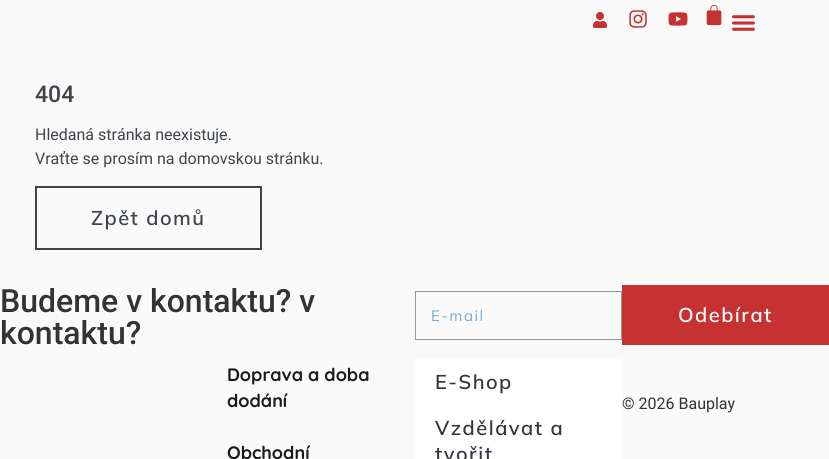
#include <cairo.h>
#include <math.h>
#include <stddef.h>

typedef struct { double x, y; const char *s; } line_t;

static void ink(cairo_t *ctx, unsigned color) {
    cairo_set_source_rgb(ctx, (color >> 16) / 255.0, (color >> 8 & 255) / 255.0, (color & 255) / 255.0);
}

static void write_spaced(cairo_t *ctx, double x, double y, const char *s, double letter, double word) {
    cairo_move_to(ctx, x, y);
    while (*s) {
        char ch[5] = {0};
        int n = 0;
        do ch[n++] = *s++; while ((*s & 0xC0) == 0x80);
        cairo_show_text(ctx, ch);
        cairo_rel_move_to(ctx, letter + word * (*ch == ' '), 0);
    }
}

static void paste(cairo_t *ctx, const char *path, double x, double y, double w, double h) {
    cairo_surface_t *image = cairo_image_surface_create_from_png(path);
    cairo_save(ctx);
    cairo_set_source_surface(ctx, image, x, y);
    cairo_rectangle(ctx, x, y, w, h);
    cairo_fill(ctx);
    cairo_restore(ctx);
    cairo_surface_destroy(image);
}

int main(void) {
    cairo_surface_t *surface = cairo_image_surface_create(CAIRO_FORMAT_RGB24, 829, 459);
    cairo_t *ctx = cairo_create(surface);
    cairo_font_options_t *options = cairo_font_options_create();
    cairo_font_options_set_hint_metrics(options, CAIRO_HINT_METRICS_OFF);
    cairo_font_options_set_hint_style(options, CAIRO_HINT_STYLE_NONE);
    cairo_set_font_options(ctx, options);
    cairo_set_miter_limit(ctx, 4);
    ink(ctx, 0xFAFAFA);
    cairo_paint(ctx);
    paste(ctx, "media/1.png", 593, 12, 14, 16);
    paste(ctx, "media/2.png", 629, 10, 18, 18);
    paste(ctx, "media/3.png", 668, 12, 20, 14);
    paste(ctx, "media/4.png", 706, 5, 16, 21);
    paste(ctx, "media/5.png", 732, 15, 23, 16);
    cairo_select_font_face(ctx, "Roboto Medium", CAIRO_FONT_SLANT_NORMAL, CAIRO_FONT_WEIGHT_NORMAL);
    cairo_set_font_size(ctx, 23);
    ink(ctx, 0x3F444B);
    cairo_move_to(ctx, 35, 102);
    cairo_show_text(ctx, "404");
    cairo_select_font_face(ctx, "Roboto", CAIRO_FONT_SLANT_NORMAL, CAIRO_FONT_WEIGHT_NORMAL);
    cairo_set_font_size(ctx, 16);
    cairo_move_to(ctx, 35, 140);
    cairo_show_text(ctx, "Hledaná stránka neexistuje.");
    cairo_move_to(ctx, 35, 164);
    cairo_show_text(ctx, "Vraťte se prosím na domovskou stránku.");
    cairo_rectangle(ctx, 36, 187, 225, 62);
    cairo_stroke(ctx);
    cairo_select_font_face(ctx, "Mulish SemiBold", CAIRO_FONT_SLANT_NORMAL, CAIRO_FONT_WEIGHT_NORMAL);
    cairo_set_font_size(ctx, 20);
    write_spaced(ctx, 91, 225, "Zpět domů", 1.5, 0);
    cairo_select_font_face(ctx, "Roboto Medium", CAIRO_FONT_SLANT_NORMAL, CAIRO_FONT_WEIGHT_NORMAL);
    cairo_set_font_size(ctx, 32);
    ink(ctx, 0x333333);
    cairo_move_to(ctx, 0, 312);
    cairo_show_text(ctx, "Budeme v kontaktu? v");
    cairo_move_to(ctx, 0, 344);
    cairo_show_text(ctx, "kontaktu?");
    cairo_rectangle(ctx, 415.5, 291.5, 206, 48);
    ink(ctx, 0x92989E);
    cairo_set_line_width(ctx, 1);
    cairo_stroke(ctx);
    cairo_select_font_face(ctx, "Mulish", CAIRO_FONT_SLANT_NORMAL, CAIRO_FONT_WEIGHT_NORMAL);
    cairo_set_font_size(ctx, 15);
    ink(ctx, 0x73AAD5);
    write_spaced(ctx, 431, 321, "E-mail", 1.5, 0);
    ink(ctx, 0xC63131);
    cairo_rectangle(ctx, 622, 285, 207, 60);
    cairo_fill(ctx);
    cairo_select_font_face(ctx, "Mulish SemiBold", CAIRO_FONT_SLANT_NORMAL, CAIRO_FONT_WEIGHT_NORMAL);
    cairo_set_font_size(ctx, 20);
    ink(ctx, 0xFFFFFF);
    write_spaced(ctx, 678, 322, "Odebírat", 1.5, 0);
    cairo_select_font_face(ctx, "Quicksand", CAIRO_FONT_SLANT_NORMAL, CAIRO_FONT_WEIGHT_BOLD);
    cairo_set_font_size(ctx, 18);
    ink(ctx, 0x1A1A1A);
    {
        static const line_t items[] = {
            {227, 381, "Doprava a doba"},
            {227, 407, "dodání"},
            {227, 459, "Obchodní"},
        };
        for (size_t i = 0; i < sizeof items / sizeof *items; i++) {
            cairo_move_to(ctx, items[i].x, items[i].y);
            cairo_show_text(ctx, items[i].s);
        }
    }
    ink(ctx, 0xFFFFFF);
    cairo_rectangle(ctx, 415, 359, 207, 100);
    cairo_fill(ctx);
    cairo_select_font_face(ctx, "Mulish SemiBold", CAIRO_FONT_SLANT_NORMAL, CAIRO_FONT_WEIGHT_NORMAL);
    cairo_set_font_size(ctx, 20);
    ink(ctx, 0x33373D);
    {
        static const line_t items[] = {
            {435, 389, "E-Shop"},
            {435, 435, "Vzdělávat a"},
            {435, 461, "tvořit"},
        };
        for (size_t i = 0; i < sizeof items / sizeof *items; i++) {
            write_spaced(ctx, items[i].x, items[i].y, items[i].s, 1.5, 0);
        }
    }
    cairo_select_font_face(ctx, "Roboto", CAIRO_FONT_SLANT_NORMAL, CAIRO_FONT_WEIGHT_NORMAL);
    cairo_set_font_size(ctx, 16);
    ink(ctx, 0x333333);
    cairo_move_to(ctx, 622, 409);
    cairo_show_text(ctx, "© 2026 Bauplay");
    cairo_surface_write_to_png(surface, "image.png");
    cairo_font_options_destroy(options);
    cairo_destroy(ctx);
    cairo_surface_destroy(surface);
    return 0;
}
